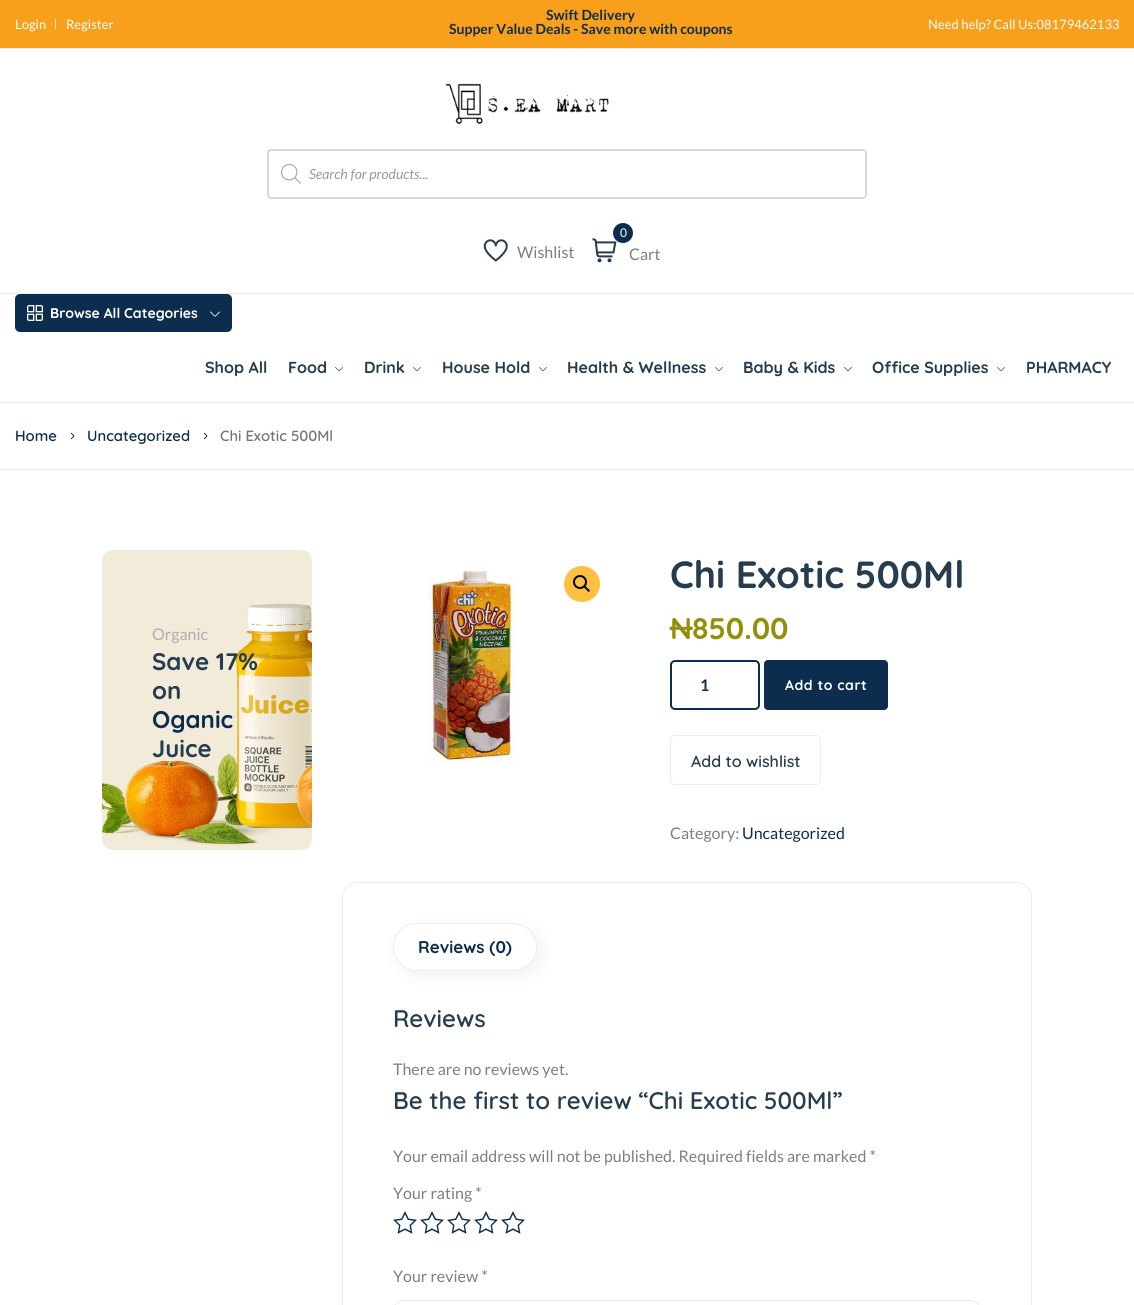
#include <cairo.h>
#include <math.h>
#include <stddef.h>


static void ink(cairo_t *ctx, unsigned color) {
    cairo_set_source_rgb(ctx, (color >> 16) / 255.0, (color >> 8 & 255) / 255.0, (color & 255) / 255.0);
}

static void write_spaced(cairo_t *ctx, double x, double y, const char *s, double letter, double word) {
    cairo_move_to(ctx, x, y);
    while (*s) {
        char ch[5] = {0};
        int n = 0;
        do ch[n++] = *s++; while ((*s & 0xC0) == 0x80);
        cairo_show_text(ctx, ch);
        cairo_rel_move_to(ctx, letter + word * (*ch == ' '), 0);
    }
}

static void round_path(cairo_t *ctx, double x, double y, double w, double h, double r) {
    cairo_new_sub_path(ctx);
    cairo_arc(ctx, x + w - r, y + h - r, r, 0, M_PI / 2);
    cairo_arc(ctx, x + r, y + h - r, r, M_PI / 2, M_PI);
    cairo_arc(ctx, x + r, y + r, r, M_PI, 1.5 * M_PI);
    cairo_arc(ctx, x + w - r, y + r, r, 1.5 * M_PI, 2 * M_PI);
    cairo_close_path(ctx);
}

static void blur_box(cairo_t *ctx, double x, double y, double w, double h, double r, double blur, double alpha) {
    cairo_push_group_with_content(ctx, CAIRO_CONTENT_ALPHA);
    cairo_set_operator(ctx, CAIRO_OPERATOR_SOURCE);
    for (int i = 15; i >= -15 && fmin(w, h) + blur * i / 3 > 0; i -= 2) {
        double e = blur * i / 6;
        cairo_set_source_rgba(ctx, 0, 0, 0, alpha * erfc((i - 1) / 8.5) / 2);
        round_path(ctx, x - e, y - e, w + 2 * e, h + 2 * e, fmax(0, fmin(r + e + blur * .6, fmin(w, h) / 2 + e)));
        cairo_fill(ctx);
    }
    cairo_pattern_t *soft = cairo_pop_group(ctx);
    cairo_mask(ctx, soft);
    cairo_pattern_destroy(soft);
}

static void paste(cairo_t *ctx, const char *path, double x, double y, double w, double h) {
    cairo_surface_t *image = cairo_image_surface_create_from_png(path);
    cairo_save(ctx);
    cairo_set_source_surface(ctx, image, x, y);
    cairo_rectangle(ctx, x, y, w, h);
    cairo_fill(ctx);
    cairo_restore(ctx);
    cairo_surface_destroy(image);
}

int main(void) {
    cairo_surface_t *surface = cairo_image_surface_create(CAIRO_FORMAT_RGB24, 1134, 1305);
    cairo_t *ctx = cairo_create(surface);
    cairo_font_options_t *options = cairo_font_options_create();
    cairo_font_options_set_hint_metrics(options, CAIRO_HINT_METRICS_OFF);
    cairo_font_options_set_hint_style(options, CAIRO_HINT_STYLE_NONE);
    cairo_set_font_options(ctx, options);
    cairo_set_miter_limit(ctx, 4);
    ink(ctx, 0xFFFFFF);
    cairo_paint(ctx);
    ink(ctx, 0xF89F1C);
    cairo_rectangle(ctx, 0, 0, 1134, 48);
    cairo_fill(ctx);
    ink(ctx, 0xECECEC);
    cairo_rectangle(ctx, 0, 48, 1134, 1);
    cairo_fill(ctx);
    cairo_select_font_face(ctx, "Lato", CAIRO_FONT_SLANT_NORMAL, CAIRO_FONT_WEIGHT_NORMAL);
    cairo_set_font_size(ctx, 13);
    ink(ctx, 0xFFFFFF);
    cairo_move_to(ctx, 15, 29);
    cairo_show_text(ctx, "Login");
    ink(ctx, 0xDEDFE2);
    cairo_rectangle(ctx, 55, 19, 1, 10);
    cairo_fill(ctx);
    ink(ctx, 0xFFFFFF);
    cairo_move_to(ctx, 66, 29);
    cairo_show_text(ctx, "Register");
    cairo_select_font_face(ctx, "Lato", CAIRO_FONT_SLANT_NORMAL, CAIRO_FONT_WEIGHT_BOLD);
    cairo_set_font_size(ctx, 14);
    ink(ctx, 0x0D2D4E);
    cairo_move_to(ctx, 546, 20);
    cairo_show_text(ctx, "Swift Delivery");
    cairo_move_to(ctx, 449, 34);
    cairo_show_text(ctx, "Supper Value Deals - Save more with coupons");
    cairo_select_font_face(ctx, "Lato", CAIRO_FONT_SLANT_NORMAL, CAIRO_FONT_WEIGHT_NORMAL);
    cairo_set_font_size(ctx, 13);
    ink(ctx, 0xFFFFFF);
    cairo_move_to(ctx, 928, 29);
    cairo_show_text(ctx, "Need help? Call Us:08179462133");
    paste(ctx, "media/1.png", 445, 83, 164, 41);
    round_path(ctx, 268, 150, 598, 48, 3);
    ink(ctx, 0xD7D9DB);
    cairo_stroke(ctx);
    paste(ctx, "media/2.png", 281, 164, 20, 20);
    cairo_select_font_face(ctx, "Lato", CAIRO_FONT_SLANT_ITALIC, CAIRO_FONT_WEIGHT_NORMAL);
    cairo_set_font_size(ctx, 14);
    ink(ctx, 0x999999);
    cairo_move_to(ctx, 309, 179);
    cairo_show_text(ctx, "Search for products...");
    paste(ctx, "media/3.png", 483, 239, 25, 23);
    cairo_select_font_face(ctx, "Lato", CAIRO_FONT_SLANT_NORMAL, CAIRO_FONT_WEIGHT_NORMAL);
    cairo_set_font_size(ctx, 16);
    ink(ctx, 0x7E7E7E);
    cairo_move_to(ctx, 517, 258);
    cairo_show_text(ctx, "Wishlist");
    paste(ctx, "media/4.png", 592, 238, 25, 25);
    ink(ctx, 0x0D2D4E);
    cairo_arc(ctx, 623, 233, 10, 0, 2 * M_PI);
    cairo_fill(ctx);
    cairo_set_font_size(ctx, 12);
    ink(ctx, 0xFFFFFF);
    cairo_move_to(ctx, 620, 237);
    cairo_show_text(ctx, "0");
    cairo_set_font_size(ctx, 16);
    ink(ctx, 0x7E7E7E);
    cairo_move_to(ctx, 629, 260);
    cairo_show_text(ctx, "Cart");
    ink(ctx, 0xECECEC);
    cairo_rectangle(ctx, 0, 293, 1134, 1);
    cairo_fill(ctx);
    cairo_rectangle(ctx, 0, 402, 1134, 1);
    cairo_fill(ctx);
    ink(ctx, 0x0D2D4E);
    round_path(ctx, 15, 294, 217, 38, 5);
    cairo_fill(ctx);
    paste(ctx, "media/5.png", 27, 305, 16, 16);
    cairo_select_font_face(ctx, "Quicksand", CAIRO_FONT_SLANT_NORMAL, CAIRO_FONT_WEIGHT_BOLD);
    cairo_set_font_size(ctx, 14);
    ink(ctx, 0xFFFFFF);
    cairo_move_to(ctx, 50, 318);
    cairo_show_text(ctx, "Browse All Categories");
    paste(ctx, "media/6.png", 210, 311, 10, 6);
    cairo_set_font_size(ctx, 16);
    ink(ctx, 0x253D4E);
    cairo_move_to(ctx, 205, 373);
    cairo_show_text(ctx, "Shop All");
    cairo_move_to(ctx, 288, 373);
    cairo_show_text(ctx, "Food");
    paste(ctx, "media/7.png", 335, 367, 8, 4);
    cairo_move_to(ctx, 364, 373);
    cairo_show_text(ctx, "Drink");
    paste(ctx, "media/7.png", 413, 367, 8, 4);
    cairo_move_to(ctx, 442, 373);
    cairo_show_text(ctx, "House Hold");
    paste(ctx, "media/7.png", 539, 367, 8, 4);
    cairo_move_to(ctx, 567, 373);
    cairo_show_text(ctx, "Health & Wellness");
    paste(ctx, "media/7.png", 715, 367, 8, 4);
    cairo_move_to(ctx, 743, 373);
    cairo_show_text(ctx, "Baby & Kids");
    paste(ctx, "media/7.png", 844, 367, 8, 4);
    cairo_move_to(ctx, 872, 373);
    cairo_show_text(ctx, "Office Supplies");
    paste(ctx, "media/7.png", 997, 367, 8, 4);
    cairo_move_to(ctx, 1026, 373);
    cairo_show_text(ctx, "PHARMACY");
    ink(ctx, 0xECECEC);
    cairo_rectangle(ctx, 0, 469, 1134, 1);
    cairo_fill(ctx);
    cairo_select_font_face(ctx, "Quicksand SemiBold", CAIRO_FONT_SLANT_NORMAL, CAIRO_FONT_WEIGHT_NORMAL);
    cairo_set_font_size(ctx, 14.75);
    ink(ctx, 0x0D2D4E);
    cairo_move_to(ctx, 15, 441);
    cairo_show_text(ctx, "Home");
    paste(ctx, "media/8.png", 70, 432, 5, 8);
    cairo_move_to(ctx, 87, 441);
    cairo_show_text(ctx, "Uncategorized");
    paste(ctx, "media/8.png", 203, 432, 5, 8);
    ink(ctx, 0x767676);
    cairo_move_to(ctx, 220, 441);
    cairo_show_text(ctx, "Chi Exotic 500Ml");
    paste(ctx, "media/9.png", 102, 550, 210, 300);
    cairo_select_font_face(ctx, "Lato", CAIRO_FONT_SLANT_NORMAL, CAIRO_FONT_WEIGHT_NORMAL);
    cairo_set_font_size(ctx, 16);
    ink(ctx, 0xADADAD);
    cairo_move_to(ctx, 152, 640);
    cairo_show_text(ctx, "Organic");
    cairo_select_font_face(ctx, "Quicksand", CAIRO_FONT_SLANT_NORMAL, CAIRO_FONT_WEIGHT_BOLD);
    cairo_set_font_size(ctx, 24);
    ink(ctx, 0x253D4E);
    cairo_move_to(ctx, 152, 670);
    cairo_show_text(ctx, "Save 17%");
    cairo_move_to(ctx, 152, 699);
    cairo_show_text(ctx, "on");
    ink(ctx, 0x0D2D4E);
    cairo_move_to(ctx, 152, 728);
    cairo_show_text(ctx, "Oganic");
    ink(ctx, 0x253D4E);
    cairo_move_to(ctx, 152, 757);
    cairo_show_text(ctx, "Juice");
    paste(ctx, "media/10.png", 427, 570, 91, 194);
    ink(ctx, 0xFDC040);
    cairo_arc(ctx, 582, 584, 18, 0, 2 * M_PI);
    cairo_fill(ctx);
    cairo_arc(ctx, 580, 582, 6, 0, 2 * M_PI);
    ink(ctx, 0x000000);
    cairo_stroke(ctx);
    cairo_new_path(ctx);
    cairo_move_to(ctx, 583.5, 585.5);
    cairo_curve_to(ctx, 585, 584.5, 586.5, 587, 587, 588);
    cairo_curve_to(ctx, 588, 588.5, 590.5, 590, 589.5, 591.5);
    cairo_curve_to(ctx, 588, 592.5, 586.5, 590, 586, 589);
    cairo_curve_to(ctx, 585, 588.5, 582.5, 587, 583.5, 585.5);
    cairo_close_path(ctx);
    cairo_fill(ctx);
    cairo_set_font_size(ctx, 38);
    ink(ctx, 0x253D4E);
    cairo_move_to(ctx, 670, 588);
    cairo_show_text(ctx, "Chi Exotic 500Ml");
    cairo_set_font_size(ctx, 30);
    ink(ctx, 0x958E09);
    cairo_move_to(ctx, 670, 639);
    cairo_show_text(ctx, "₦850.00");
    round_path(ctx, 671, 661, 88, 48, 4);
    ink(ctx, 0x0D2D4E);
    cairo_stroke(ctx);
    cairo_select_font_face(ctx, "Lato", CAIRO_FONT_SLANT_NORMAL, CAIRO_FONT_WEIGHT_BOLD);
    cairo_set_font_size(ctx, 16);
    cairo_move_to(ctx, 700, 691);
    cairo_show_text(ctx, "1");
    round_path(ctx, 764, 660, 124, 50, 4);
    cairo_fill(ctx);
    cairo_select_font_face(ctx, "Quicksand", CAIRO_FONT_SLANT_NORMAL, CAIRO_FONT_WEIGHT_BOLD);
    cairo_set_font_size(ctx, 14);
    ink(ctx, 0xFFFFFF);
    write_spaced(ctx, 785, 690, "Add to cart", 0.5, 0);
    round_path(ctx, 670.5, 735.5, 150, 49, 4.5);
    ink(ctx, 0xECECEC);
    cairo_set_line_width(ctx, 1);
    cairo_stroke(ctx);
    cairo_select_font_face(ctx, "Quicksand SemiBold", CAIRO_FONT_SLANT_NORMAL, CAIRO_FONT_WEIGHT_NORMAL);
    cairo_set_font_size(ctx, 16);
    ink(ctx, 0x253D4E);
    cairo_move_to(ctx, 691, 767);
    cairo_show_text(ctx, "Add to wishlist");
    cairo_select_font_face(ctx, "Lato", CAIRO_FONT_SLANT_NORMAL, CAIRO_FONT_WEIGHT_NORMAL);
    ink(ctx, 0x7E7E7E);
    cairo_move_to(ctx, 670, 839);
    cairo_show_text(ctx, "Category:");
    ink(ctx, 0x0D2D4E);
    cairo_move_to(ctx, 742, 839);
    cairo_show_text(ctx, "Uncategorized");
    round_path(ctx, 342.5, 882.5, 689, 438, 14.5);
    ink(ctx, 0xECECEC);
    cairo_stroke(ctx);
    ink(ctx, 0x000000);
    blur_box(ctx, 398, 928, 144, 48, 24, 7.5, 0.05);
    ink(ctx, 0xFFFFFF);
    round_path(ctx, 393.5, 923.5, 143, 47, 23.5);
    cairo_fill_preserve(ctx);
    ink(ctx, 0xECECEC);
    cairo_stroke(ctx);
    cairo_select_font_face(ctx, "Quicksand", CAIRO_FONT_SLANT_NORMAL, CAIRO_FONT_WEIGHT_BOLD);
    cairo_set_font_size(ctx, 17);
    ink(ctx, 0x0D2D4E);
    cairo_move_to(ctx, 418, 953);
    cairo_show_text(ctx, "Reviews (0)");
    cairo_select_font_face(ctx, "Quicksand SemiBold", CAIRO_FONT_SLANT_NORMAL, CAIRO_FONT_WEIGHT_NORMAL);
    cairo_set_font_size(ctx, 24);
    ink(ctx, 0x253D4E);
    cairo_move_to(ctx, 393, 1027);
    cairo_show_text(ctx, "Reviews");
    cairo_select_font_face(ctx, "Lato", CAIRO_FONT_SLANT_NORMAL, CAIRO_FONT_WEIGHT_NORMAL);
    cairo_set_font_size(ctx, 16);
    ink(ctx, 0x7E7E7E);
    cairo_move_to(ctx, 393, 1075);
    cairo_show_text(ctx, "There are no reviews yet.");
    cairo_select_font_face(ctx, "Quicksand SemiBold", CAIRO_FONT_SLANT_NORMAL, CAIRO_FONT_WEIGHT_NORMAL);
    cairo_set_font_size(ctx, 24);
    ink(ctx, 0x253D4E);
    cairo_move_to(ctx, 393, 1109);
    cairo_show_text(ctx, "Be the first to review “Chi Exotic 500Ml”");
    cairo_select_font_face(ctx, "Lato", CAIRO_FONT_SLANT_NORMAL, CAIRO_FONT_WEIGHT_NORMAL);
    cairo_set_font_size(ctx, 16);
    ink(ctx, 0x7E7E7E);
    cairo_move_to(ctx, 393, 1162);
    cairo_show_text(ctx, "Your email address will not be published. Required fields are marked *");
    cairo_move_to(ctx, 393, 1199);
    cairo_show_text(ctx, "Your rating *");
    paste(ctx, "media/11.png", 393, 1211, 24, 23);
    paste(ctx, "media/11.png", 420, 1211, 24, 23);
    paste(ctx, "media/11.png", 447, 1211, 24, 23);
    paste(ctx, "media/11.png", 474, 1211, 24, 23);
    paste(ctx, "media/11.png", 501, 1211, 24, 23);
    cairo_move_to(ctx, 393, 1282);
    cairo_show_text(ctx, "Your review *");
    round_path(ctx, 393.5, 1300.5, 587, 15, 9.5);
    ink(ctx, 0xECECEC);
    cairo_stroke(ctx);
    cairo_surface_write_to_png(surface, "image.png");
    cairo_font_options_destroy(options);
    cairo_destroy(ctx);
    cairo_surface_destroy(surface);
    return 0;
}
